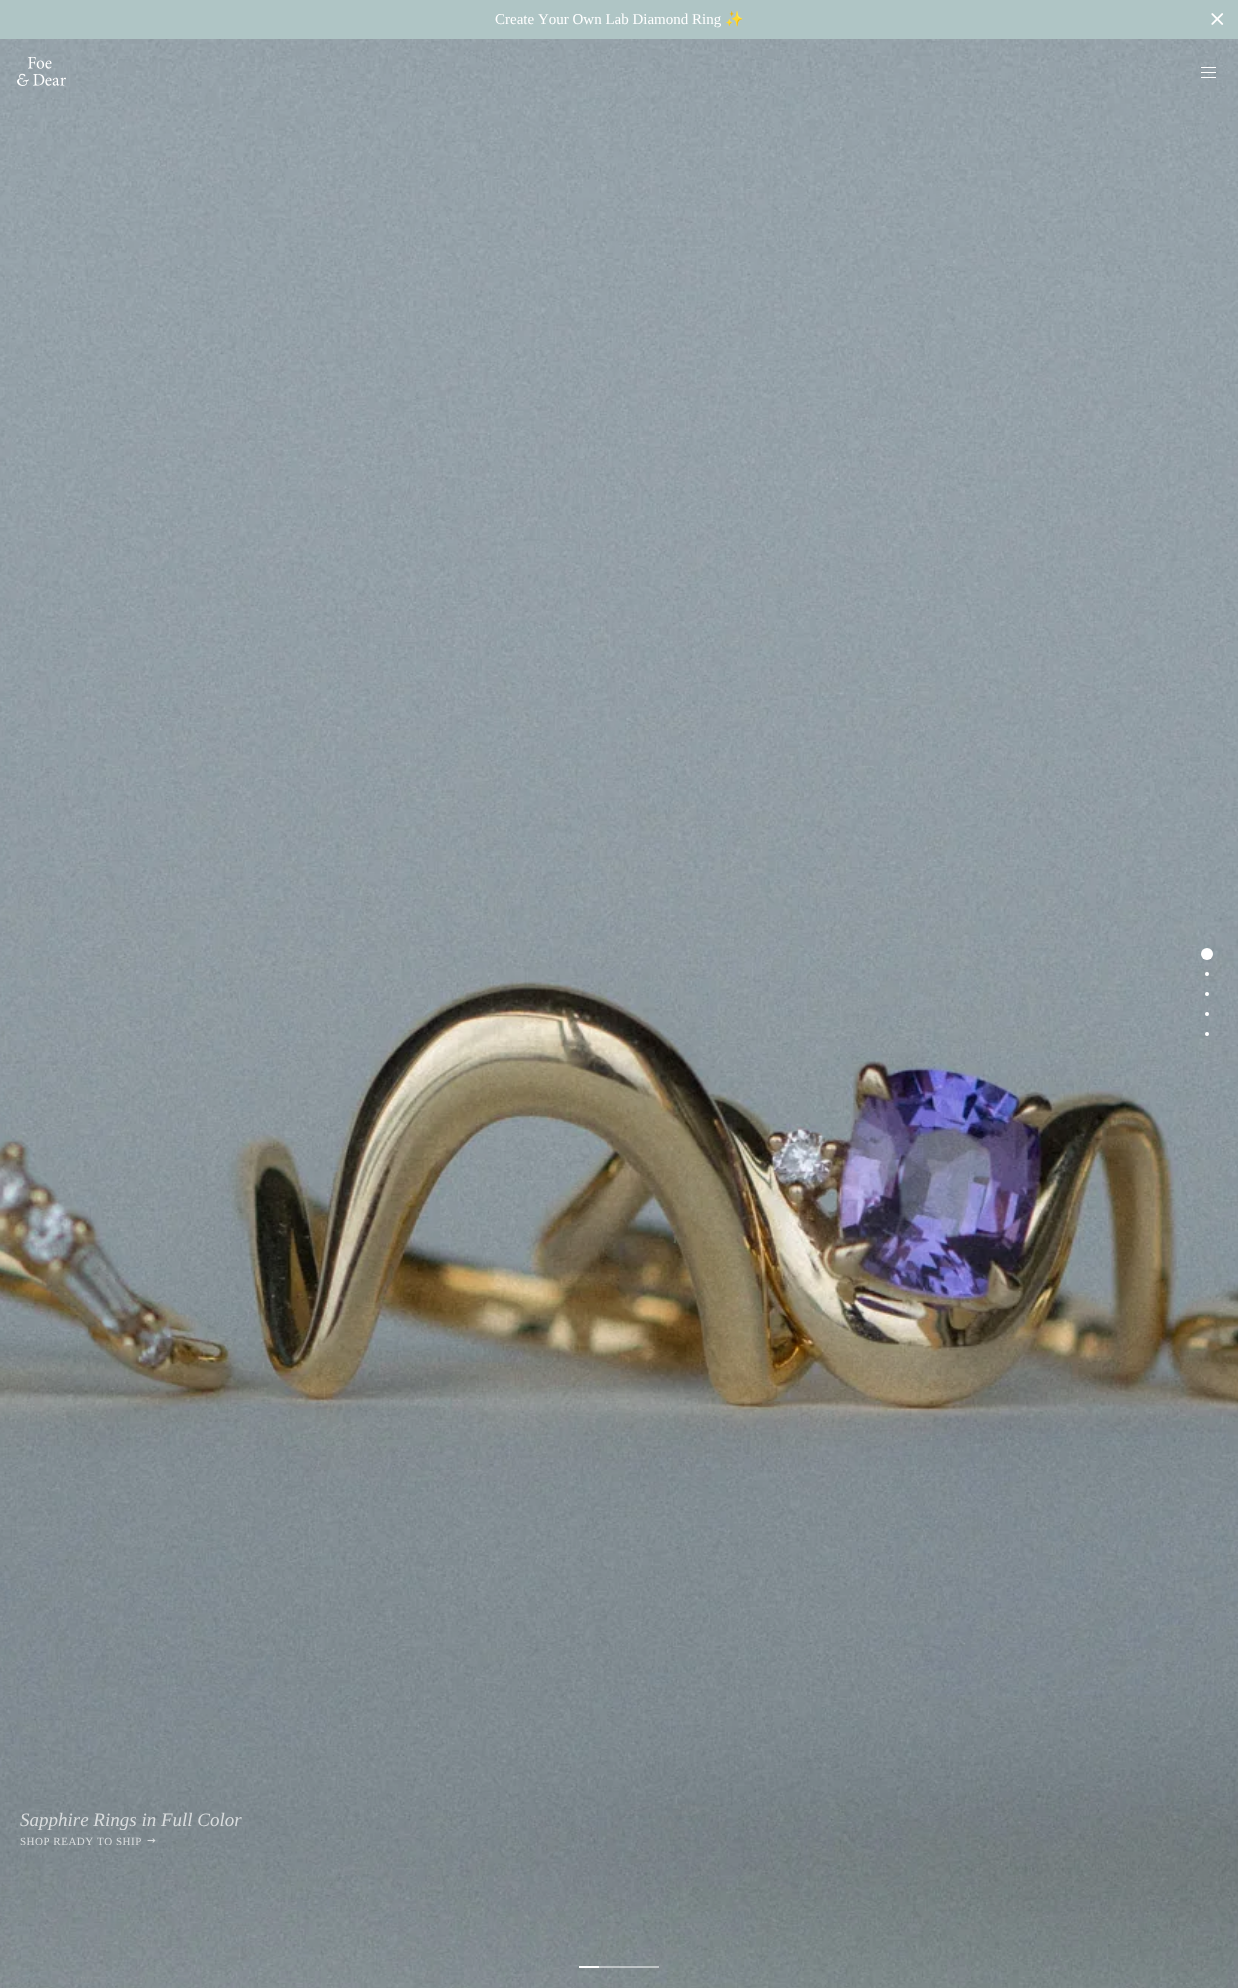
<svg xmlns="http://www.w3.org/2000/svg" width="1238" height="1988">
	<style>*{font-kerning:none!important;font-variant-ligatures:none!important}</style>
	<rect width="100%" height="100%" fill="#FFFFFF" />
	<rect x="0" y="0" width="1238" height="39" fill="#AFC5C5" />
	<text x="495" y="24" font-family="Liberation Serif" font-size="15" fill="#FFFFFF">Create Your Own Lab Diamond Ring</text>
	<text x="725" y="24" font-family="Noto Color Emoji" font-size="15" fill="#FFFFFF">✨</text>
	<image x="1211" y="13" width="13" height="12" href="assets/img1.png" />
	<image x="0" y="39" width="1238" height="1949" href="assets/img2.png" />
	<text x="20" y="1826" font-family="Liberation Serif" font-size="19" font-style="italic" fill="#D9DCDD">Sapphire Rings in Full Color</text>
	<text x="20" y="1845" font-family="Liberation Serif" font-size="11" letter-spacing="0.5" fill="#D9DCDD">SHOP READY TO SHIP</text>
	<image x="147" y="1838" width="9" height="5" href="assets/img3.png" />
	<rect x="579" y="1966" width="20" height="2" fill="#FFFFFF" />
	<rect x="599" y="1966" width="20" height="2" fill="#FFFFFF" fill-opacity="0.5" />
	<rect x="619" y="1966" width="20" height="2" fill="#FFFFFF" fill-opacity="0.5" />
	<rect x="639" y="1966" width="20" height="2" fill="#FFFFFF" fill-opacity="0.5" />
	<image x="17" y="57" width="49" height="29" href="assets/img4.png" />
	<rect x="1201" y="67" width="15" height="1" fill="#FFFFFF" />
	<rect x="1201" y="72" width="15" height="1" fill="#FFFFFF" />
	<rect x="1201" y="77" width="15" height="1" fill="#FFFFFF" />
	<circle cx="1207" cy="954" r="6" fill="#FFFFFF" />
	<circle cx="1207" cy="974" r="2" fill="#FFFFFF" />
	<circle cx="1207" cy="994" r="2" fill="#FFFFFF" />
	<circle cx="1207" cy="1014" r="2" fill="#FFFFFF" />
	<circle cx="1207" cy="1034" r="2" fill="#FFFFFF" />
</svg>
